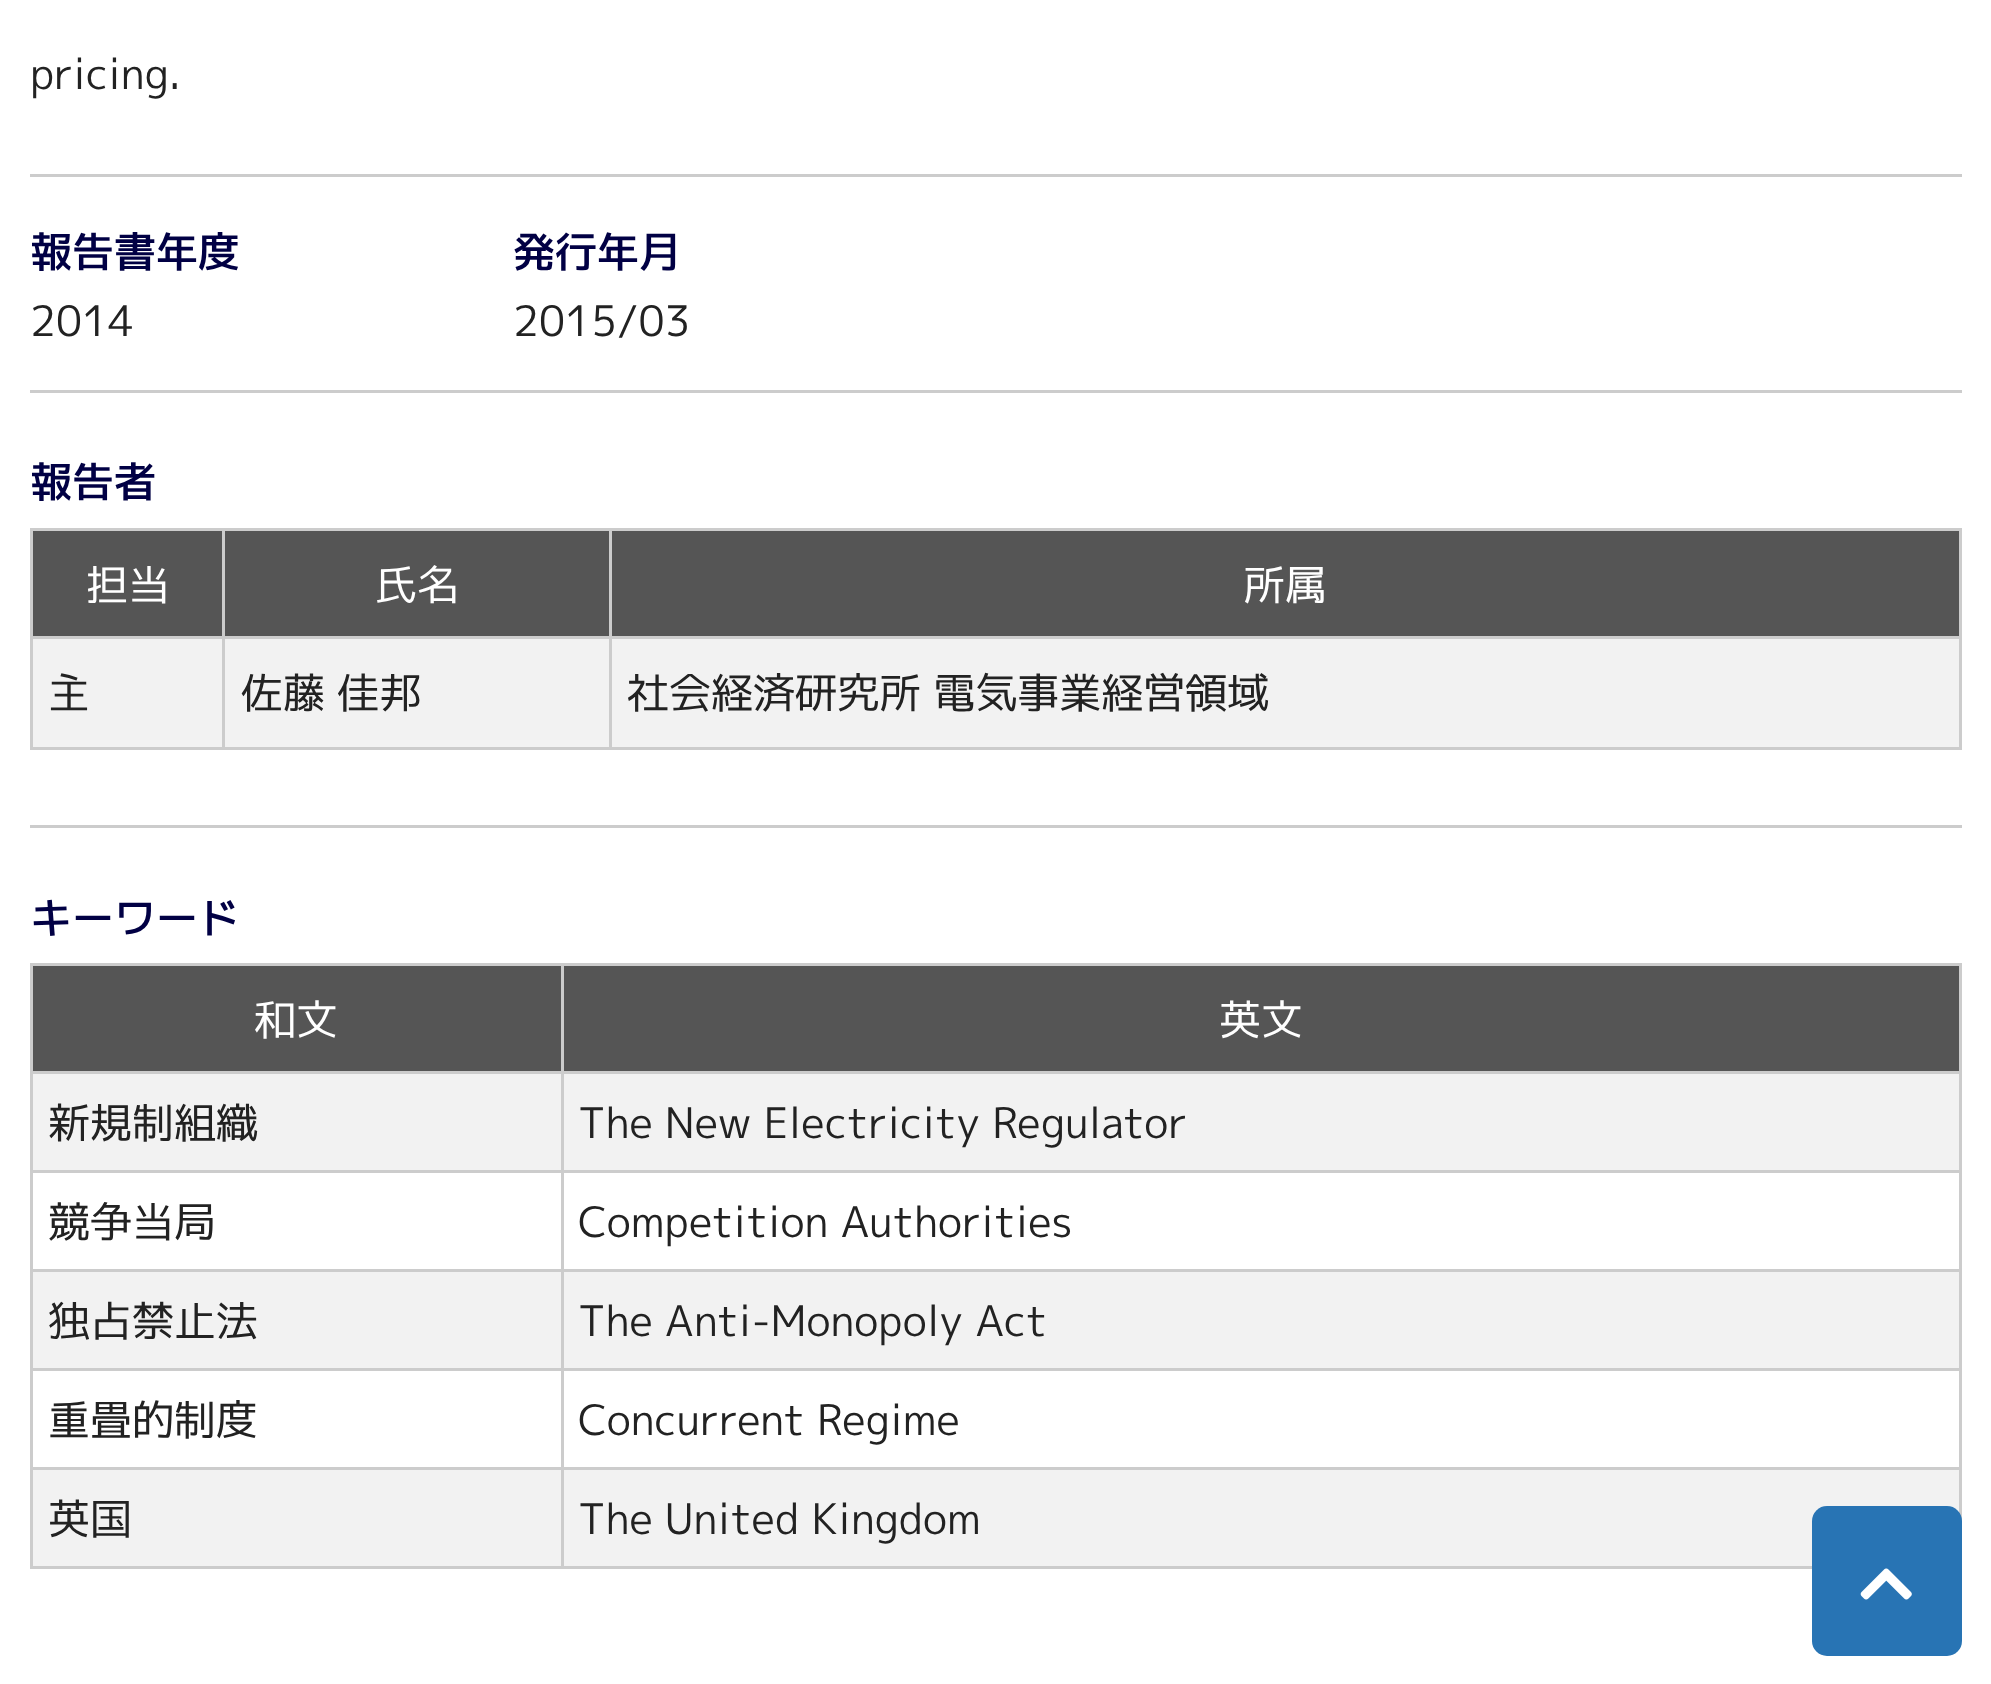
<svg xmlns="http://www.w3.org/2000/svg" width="1991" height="1684">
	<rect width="100%" height="100%" fill="#FFFFFF" />
	<text x="30" y="89" font-family="'M PLUS 1p'" font-size="42" fill="#222222">pricing.</text>
	<rect x="30" y="174" width="1932" height="3" fill="#CCCCCC" />
	<text x="30" y="267" font-family="'M PLUS 1p'" font-size="42" font-weight="500" fill="#010044">報告書年度</text>
	<text x="30" y="336" font-family="'M PLUS 1p'" font-size="42" fill="#222222">2014</text>
	<text x="513" y="267" font-family="'M PLUS 1p'" font-size="42" font-weight="500" fill="#010044">発行年月</text>
	<text x="513" y="336" font-family="'M PLUS 1p'" font-size="42" fill="#222222">2015/03</text>
	<rect x="30" y="390" width="1932" height="3" fill="#CCCCCC" />
	<text x="30" y="497" font-family="'M PLUS 1p'" font-size="42" font-weight="500" fill="#010044">報告者</text>
	<rect x="33" y="531" width="189" height="105" fill="#555555" />
	<rect x="609" y="528" width="1353" height="3" fill="#CCCCCC" />
	<rect x="609" y="636" width="1353" height="3" fill="#CCCCCC" />
	<rect x="1959" y="636" width="3" height="114" fill="#CCCCCC" />
	<rect x="609" y="747" width="1353" height="3" fill="#CCCCCC" />
	<rect x="609" y="636" width="3" height="114" fill="#CCCCCC" />
	<rect x="222" y="636" width="390" height="3" fill="#CCCCCC" />
	<rect x="609" y="528" width="3" height="111" fill="#CCCCCC" />
	<rect x="222" y="528" width="390" height="3" fill="#CCCCCC" />
	<rect x="222" y="747" width="390" height="3" fill="#CCCCCC" />
	<rect x="222" y="636" width="3" height="114" fill="#CCCCCC" />
	<rect x="30" y="636" width="195" height="3" fill="#CCCCCC" />
	<rect x="222" y="528" width="3" height="111" fill="#CCCCCC" />
	<rect x="30" y="528" width="195" height="3" fill="#CCCCCC" />
	<rect x="30" y="747" width="195" height="3" fill="#CCCCCC" />
	<rect x="30" y="636" width="3" height="114" fill="#CCCCCC" />
	<rect x="30" y="528" width="3" height="111" fill="#CCCCCC" />
	<text x="86" y="600" font-family="'M PLUS 1p'" font-size="42" fill="#FFFFFF">担当</text>
	<rect x="225" y="531" width="384" height="105" fill="#555555" />
	<text x="375" y="600" font-family="'M PLUS 1p'" font-size="42" fill="#FFFFFF">氏名</text>
	<rect x="612" y="531" width="1347" height="105" fill="#555555" />
	<rect x="1959" y="528" width="3" height="111" fill="#CCCCCC" />
	<text x="1243" y="600" font-family="'M PLUS 1p'" font-size="42" fill="#FFFFFF">所属</text>
	<rect x="33" y="639" width="189" height="108" fill="#F2F2F2" />
	<text x="48" y="708" font-family="'M PLUS 1p'" font-size="42" fill="#222222">主</text>
	<rect x="225" y="639" width="384" height="108" fill="#F2F2F2" />
	<text x="241" y="708" font-family="'M PLUS 1p'" font-size="42" fill="#222222">佐藤 佳邦</text>
	<rect x="612" y="639" width="1347" height="108" fill="#F2F2F2" />
	<text x="627" y="708" font-family="'M PLUS 1p'" font-size="42" fill="#222222">社会経済研究所 電気事業経営領域</text>
	<rect x="30" y="825" width="1932" height="3" fill="#CCCCCC" />
	<text x="30" y="933" font-family="'M PLUS 1p'" font-size="42" font-weight="500" fill="#010044">キーワード</text>
	<rect x="33" y="966" width="528" height="105" fill="#555555" />
	<rect x="561" y="963" width="1401" height="3" fill="#CCCCCC" />
	<rect x="561" y="1071" width="1401" height="3" fill="#CCCCCC" />
	<rect x="561" y="1170" width="1401" height="3" fill="#CCCCCC" />
	<rect x="561" y="1269" width="1401" height="3" fill="#CCCCCC" />
	<rect x="561" y="1368" width="1401" height="3" fill="#CCCCCC" />
	<rect x="561" y="1467" width="1401" height="3" fill="#CCCCCC" />
	<rect x="561" y="1566" width="1251" height="3" fill="#CCCCCC" />
	<rect x="561" y="1467" width="3" height="102" fill="#CCCCCC" />
	<rect x="30" y="1467" width="534" height="3" fill="#CCCCCC" />
	<rect x="561" y="1368" width="3" height="102" fill="#CCCCCC" />
	<rect x="30" y="1368" width="534" height="3" fill="#CCCCCC" />
	<rect x="561" y="1269" width="3" height="102" fill="#CCCCCC" />
	<rect x="30" y="1269" width="534" height="3" fill="#CCCCCC" />
	<rect x="561" y="1170" width="3" height="102" fill="#CCCCCC" />
	<rect x="30" y="1170" width="534" height="3" fill="#CCCCCC" />
	<rect x="561" y="1071" width="3" height="102" fill="#CCCCCC" />
	<rect x="30" y="1071" width="534" height="3" fill="#CCCCCC" />
	<rect x="561" y="963" width="3" height="111" fill="#CCCCCC" />
	<rect x="30" y="963" width="534" height="3" fill="#CCCCCC" />
	<rect x="30" y="1566" width="534" height="3" fill="#CCCCCC" />
	<rect x="30" y="1467" width="3" height="102" fill="#CCCCCC" />
	<rect x="30" y="1368" width="3" height="102" fill="#CCCCCC" />
	<rect x="30" y="1269" width="3" height="102" fill="#CCCCCC" />
	<rect x="30" y="1170" width="3" height="102" fill="#CCCCCC" />
	<rect x="30" y="1071" width="3" height="102" fill="#CCCCCC" />
	<rect x="30" y="963" width="3" height="111" fill="#CCCCCC" />
	<text x="254" y="1035" font-family="'M PLUS 1p'" font-size="42" fill="#FFFFFF">和文</text>
	<rect x="564" y="966" width="1395" height="105" fill="#555555" />
	<rect x="1959" y="1467" width="3" height="54" fill="#CCCCCC" />
	<rect x="1959" y="1368" width="3" height="102" fill="#CCCCCC" />
	<rect x="1959" y="1269" width="3" height="102" fill="#CCCCCC" />
	<rect x="1959" y="1170" width="3" height="102" fill="#CCCCCC" />
	<rect x="1959" y="1071" width="3" height="102" fill="#CCCCCC" />
	<rect x="1959" y="963" width="3" height="111" fill="#CCCCCC" />
	<text x="1219" y="1035" font-family="'M PLUS 1p'" font-size="42" fill="#FFFFFF">英文</text>
	<rect x="33" y="1074" width="528" height="96" fill="#F2F2F2" />
	<text x="48" y="1138" font-family="'M PLUS 1p'" font-size="42" fill="#222222">新規制組織</text>
	<rect x="564" y="1074" width="1395" height="96" fill="#F2F2F2" />
	<g font-family="'M PLUS 1p'" font-size="42" fill="#222222">
		<text x="578" y="1138">The New Electricity Regulator</text>
		<text x="48" y="1237">競争当局</text>
		<text x="578" y="1237">Competition Authorities</text>
	</g>
	<rect x="33" y="1272" width="528" height="96" fill="#F2F2F2" />
	<text x="48" y="1336" font-family="'M PLUS 1p'" font-size="42" fill="#222222">独占禁止法</text>
	<rect x="564" y="1272" width="1395" height="96" fill="#F2F2F2" />
	<g font-family="'M PLUS 1p'" font-size="42" fill="#222222">
		<text x="578" y="1336">The Anti-Monopoly Act</text>
		<text x="48" y="1435">重畳的制度</text>
		<text x="578" y="1435">Concurrent Regime</text>
	</g>
	<rect x="33" y="1470" width="528" height="96" fill="#F2F2F2" />
	<text x="48" y="1534" font-family="'M PLUS 1p'" font-size="42" fill="#222222">英国</text>
	<rect x="564" y="1470" width="1395" height="96" fill="#F2F2F2" />
	<text x="578" y="1534" font-family="'M PLUS 1p'" font-size="42" fill="#222222">The United Kingdom</text>
	<rect x="1812" y="1506" width="150" height="150" rx="15" fill="#2874B4" />
	<image x="1860" y="1568" width="52" height="32" href="assets/img1.png" />
</svg>
